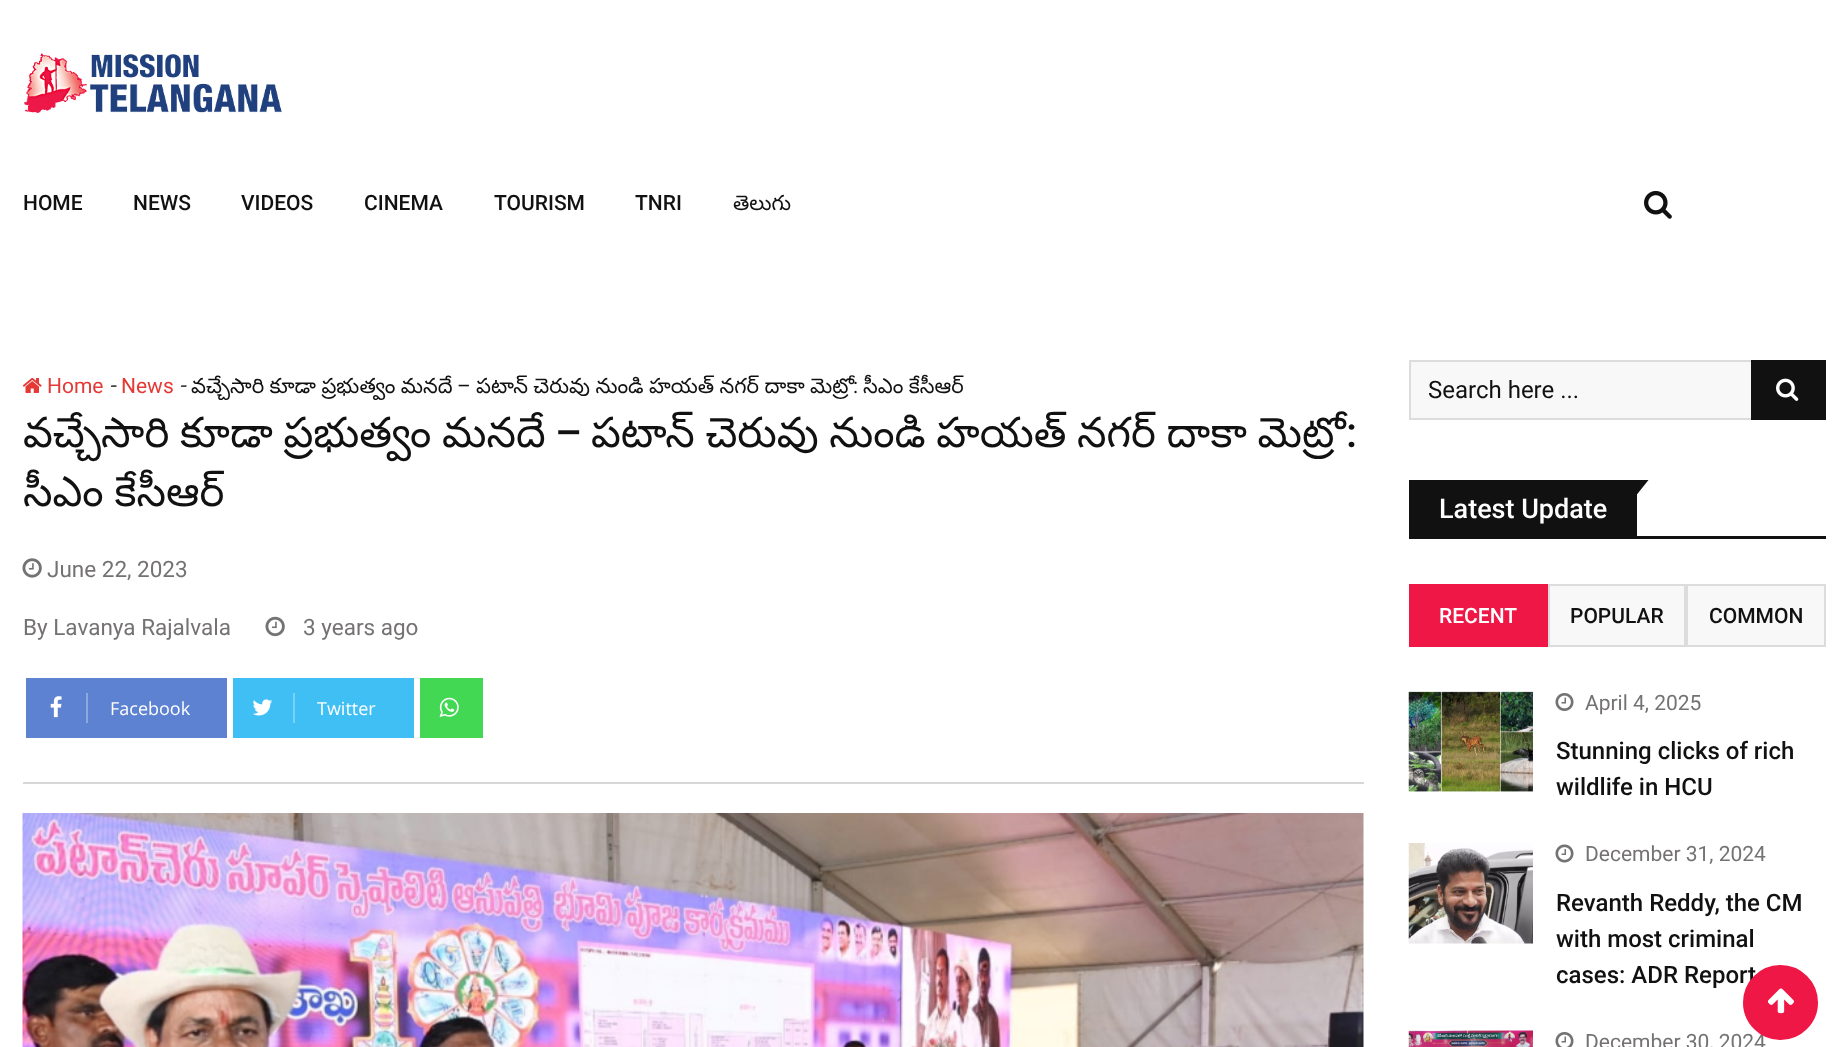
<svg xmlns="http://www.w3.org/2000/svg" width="1847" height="1047">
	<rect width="100%" height="100%" fill="#FFFFFF" />
	<image x="24" y="53" width="258" height="60" href="assets/img1.png" />
	<g font-family="Roboto" font-size="21" font-weight="500" fill="#111111">
		<text x="23" y="210">HOME</text>
		<text x="133" y="210">NEWS</text>
		<text x="241" y="210">VIDEOS</text>
		<text x="364" y="210">CINEMA</text>
		<text x="494" y="210">TOURISM</text>
		<text x="635" y="210">TNRI</text>
	</g>
	<text x="733" y="210" font-family="Noto Sans Telugu" font-size="21" fill="#111111">తెలుగు</text>
	<image x="1644" y="190" width="28" height="29" href="assets/img2.png" />
	<image x="22" y="378" width="20" height="15" href="assets/img3.png" />
	<text x="47" y="393" font-family="Roboto" font-size="21" fill="#E53935">Home</text>
	<text x="109" y="393" font-family="Roboto" font-size="22.5" font-style="italic" fill="#444444">-</text>
	<text x="121" y="393" font-family="Roboto" font-size="21" fill="#E53935">News</text>
	<text x="179" y="393" font-family="Roboto" font-size="22.5" font-style="italic" fill="#444444">-</text>
	<text x="191" y="393" word-spacing="-0.5" font-family="Noto Sans Telugu" font-size="21" fill="#111111">వచ్చేసారి కూడా ప్రభుత్వం మనదే</text>
	<text x="457" y="393" font-family="Roboto" font-size="21" fill="#111111">–</text>
	<text x="476" y="393" word-spacing="-0.5" font-family="Noto Sans Telugu" font-size="21" fill="#111111">పటాన్ చెరువు నుండి హయత్ నగర్ దాకా మెట్రో</text>
	<text x="853" y="393" font-family="Roboto" font-size="21" fill="#111111">:</text>
	<text x="863" y="393" word-spacing="-0.5" font-family="Noto Sans Telugu" font-size="21" fill="#111111">సీఎం కేసీఆర్</text>
	<text x="23" y="447" word-spacing="-1.25" font-family="Noto Sans Telugu" font-size="42" fill="#111111">వచ్చేసారి కూడా ప్రభుత్వం మనదే</text>
	<text x="555" y="447" font-family="Roboto" font-size="42" font-weight="500" fill="#111111">–</text>
	<text x="591" y="447" word-spacing="-1.25" font-family="Noto Sans Telugu" font-size="42" fill="#111111">పటాన్ చెరువు నుండి హయత్ నగర్ దాకా మెట్రో</text>
	<text x="1346" y="447" font-family="Roboto" font-size="42" font-weight="500" fill="#111111">:</text>
	<text x="23" y="506" word-spacing="-1" font-family="Noto Sans Telugu" font-size="42" fill="#111111">సీఎం కేసీఆర్</text>
	<image x="22" y="558" width="20" height="20" href="assets/img4.png" />
	<g font-family="Roboto" font-size="22.5" fill="#757272">
		<text x="47" y="577">June 22, 2023</text>
		<text x="23" y="635">By Lavanya Rajalvala</text>
	</g>
	<image x="265" y="616" width="20" height="21" href="assets/img5.png" />
	<text x="303" y="635" font-family="Roboto" font-size="22.5" fill="#757272">3 years ago</text>
	<rect x="26" y="678" width="201" height="60" fill="#5D82D1" />
	<image x="50" y="696" width="12" height="22" href="assets/img6.png" />
	<rect x="86" y="693" width="2" height="30" fill="#8EA8DF" />
	<text x="110" y="715" font-family="Open Sans" font-size="18" fill="#FFFFFF">Facebook</text>
	<rect x="233" y="678" width="181" height="60" fill="#40BFF5" />
	<image x="252" y="699" width="21" height="17" href="assets/img7.png" />
	<rect x="293" y="693" width="2" height="30" fill="#79D2F8" />
	<text x="317" y="715" font-family="Open Sans" font-size="18" fill="#FFFFFF">Twitter</text>
	<rect x="420" y="678" width="63" height="60" fill="#43D854" />
	<image x="439" y="697" width="20" height="21" href="assets/img8.png" />
	<rect x="23" y="782" width="1341" height="2" fill="#D7D7D7" />
	<image x="22" y="813" width="1342" height="234" href="assets/img9.png" />
	<rect x="1411" y="362" width="340" height="56" fill="#F8F8F8" />
	<rect x="1410" y="361" width="415" height="58" fill="none" stroke="#DCDCDC" stroke-width="2" />
	<text x="1428" y="398" font-family="Roboto" font-size="24" fill="#111111">Search here ...</text>
	<rect x="1751" y="360" width="75" height="60" fill="#111111" />
	<image x="1776" y="378" width="23" height="23" href="assets/img10.png" />
	<rect x="1409" y="536" width="417" height="3" fill="#111111" />
	<rect x="1409" y="480" width="228" height="56" fill="#111111" />
	<path d="M1636.5 480H1648.5L1636.5 495Z" fill="#111111" />
	<text x="1439" y="518" font-family="Roboto" font-size="27" font-weight="500" fill="#FFFFFF">Latest Update</text>
	<rect x="1409" y="584" width="139" height="63" fill="#EE1745" />
	<text x="1439" y="623" font-family="Roboto" font-size="21" font-weight="500" fill="#FFFFFF">RECENT</text>
	<rect x="1549" y="585" width="136" height="61" fill="#F8F8F8" stroke="#DCDCDC" stroke-width="2" />
	<text x="1570" y="623" font-family="Roboto" font-size="21" font-weight="500" fill="#111111">POPULAR</text>
	<rect x="1687" y="585" width="138" height="61" fill="#F8F8F8" stroke="#DCDCDC" stroke-width="2" />
	<text x="1709" y="623" font-family="Roboto" font-size="21" font-weight="500" fill="#111111">COMMON</text>
	<image x="1408" y="691" width="125" height="101" href="assets/img11.png" />
	<image x="1555" y="693" width="19" height="18" href="assets/img12.png" />
	<text x="1585" y="710" font-family="Roboto" font-size="21" fill="#757272">April 4, 2025</text>
	<g font-family="Roboto" font-size="24" font-weight="500" fill="#111111">
		<text x="1556" y="759">Stunning clicks of rich</text>
		<text x="1556" y="795">wildlife in HCU</text>
	</g>
	<image x="1408" y="843" width="125" height="101" href="assets/img13.png" />
	<image x="1555" y="844" width="19" height="19" href="assets/img14.png" />
	<text x="1585" y="861" font-family="Roboto" font-size="21" fill="#757272">December 31, 2024</text>
	<g font-family="Roboto" font-size="24" font-weight="500" fill="#111111">
		<text x="1556" y="911">Revanth Reddy, the CM</text>
		<text x="1556" y="947">with most criminal</text>
		<text x="1556" y="983">cases: ADR Report</text>
	</g>
	<image x="1408" y="1030" width="125" height="17" href="assets/img15.png" />
	<image x="1555" y="1032" width="19" height="15" href="assets/img16.png" />
	<text x="1585" y="1049" font-family="Roboto" font-size="21" fill="#757272">December 30, 2024</text>
	<circle cx="1780.5" cy="1002.5" r="36" fill="#EE1745" stroke="#EE1745" stroke-width="3" />
	<image x="1767" y="988" width="27" height="26" href="assets/img17.png" />
</svg>
